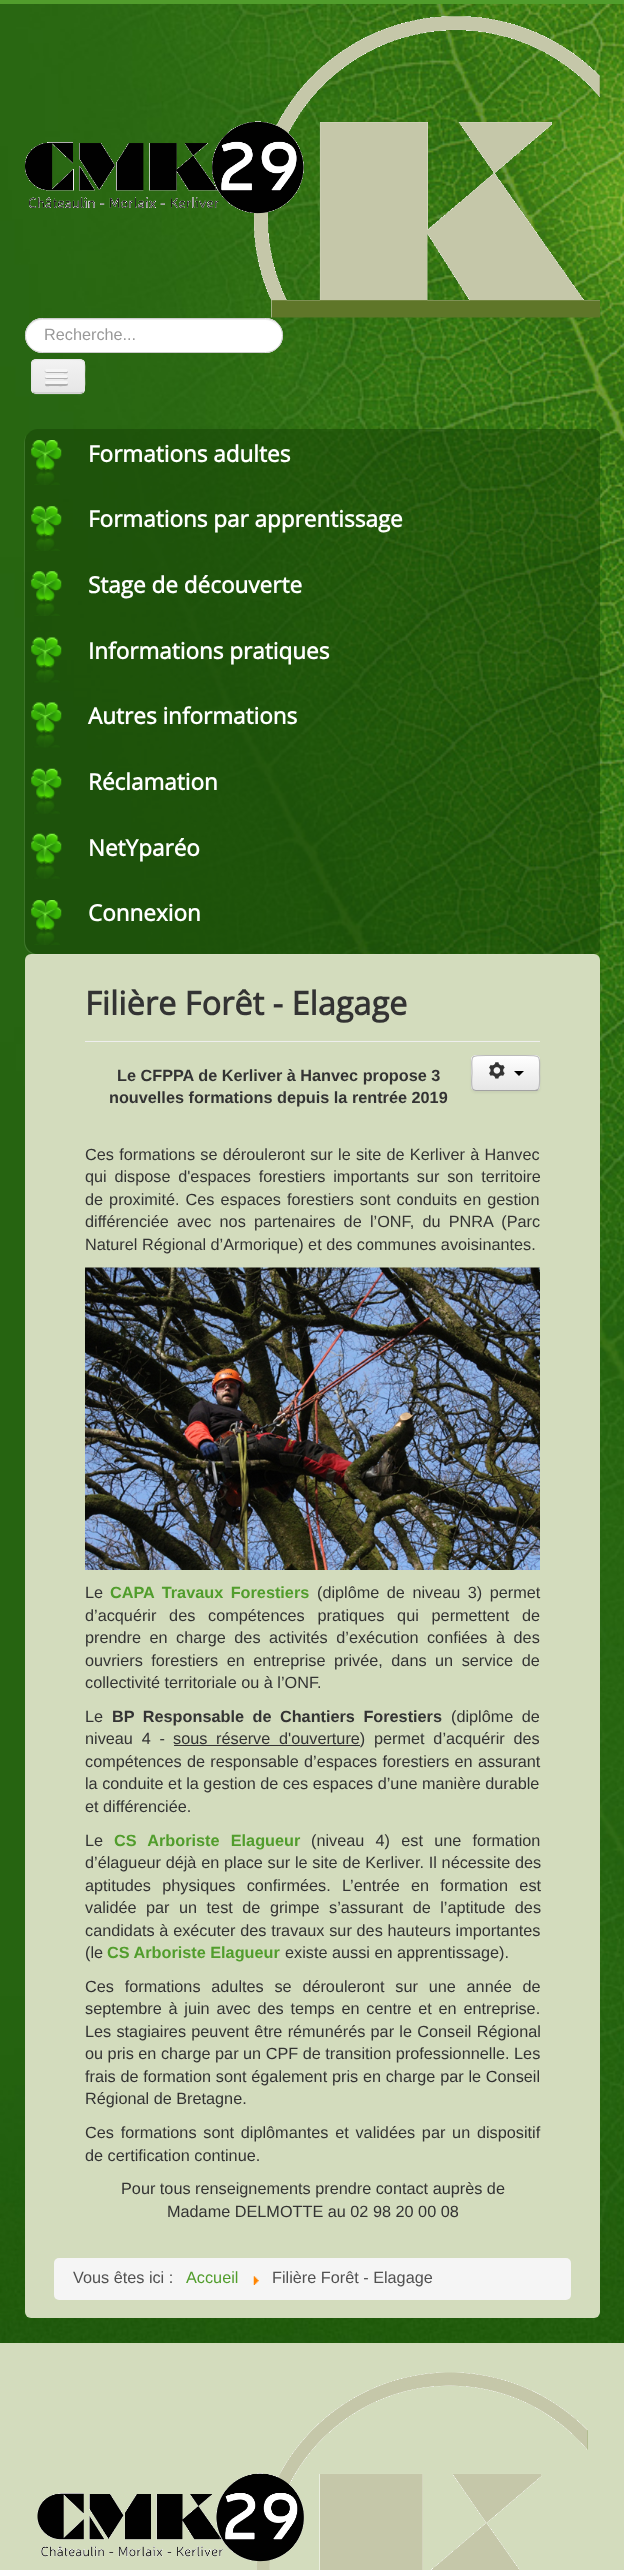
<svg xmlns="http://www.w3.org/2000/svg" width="624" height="2570">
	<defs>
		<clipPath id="clip1"><rect x="31" y="359" width="54" height="35" rx="5" /></clipPath>
		<linearGradient id="g1" gradientUnits="userSpaceOnUse" x1="58" y1="360" x2="58" y2="393"><stop offset="0" stop-color="#F2F2F2" /><stop offset="1" stop-color="#E6E6E6" /></linearGradient>
		<clipPath id="clip2"><rect x="471" y="1055" width="69" height="36" rx="5" /></clipPath>
		<linearGradient id="g2" gradientUnits="userSpaceOnUse" x1="506" y1="1056" x2="506" y2="1090"><stop offset="0" stop-color="#FFFFFF" /><stop offset="1" stop-color="#E6E6E6" /></linearGradient>
	</defs>
	<rect width="100%" height="100%" fill="#FFFFFF" />
	<image x="0" y="4" width="624" height="2339" href="assets/img1.png" />
	<rect x="0" y="0" width="624" height="4" fill="#519D2C" />
	<image x="25" y="16" width="575" height="302" href="assets/img2.png" />
	<rect x="25" y="318" width="258" height="35" rx="17.5" fill="#FFFFFF" />
	<path d="M42 320H265C274 320 281 327 281 335C281 327 274 319 265 319H42C33 319 26 327 26 336C26 327 34 320 42 320Z" fill="#ECECEC" />
	<rect x="25.5" y="318.5" width="257" height="34" rx="17" fill="none" stroke="#CCCCCC" />
	<text x="44" y="340" font-family="Liberation Sans" font-size="16.25" fill="#999999">Recherche...</text>
	<path d="M31 363V391C32 396 40 395 43 395H73C79 395 85 397 85 389C85 392 83 394 80 394H36C33 394 31 392 31 389Z" fill="#387224" />
	<rect x="31" y="359" width="54" height="35" rx="5" fill="#EDEDED" />
	<g clip-path="url(#clip1)">
		<rect x="31" y="360" width="54" height="33" fill="url(#g1)" />
	</g>
	<path d="M83 392C82.5 392.5 81 393 80 393H36C35 393 34 392.5 33 392" fill="none" stroke="#BFBFBF" stroke-width="1.2" />
	<path d="M33 392C30.5 389.5 32 379.5 32 376C32 360.5 28.5 359.5 43.5 359.5H72.5C87.5 359.5 84.5 360.5 84.5 376C84.5 379.5 85.5 389.5 83 392" fill="none" stroke="#E6E6E6" stroke-width="1.2" />
	<path d="M45 370.5C43.5 373.5 49.5 373 50 373H63C64 373 67.5 374 68 372C68 371.5 68 370.5 67.5 370.5L66.5 371H46Z" fill="#B2B2B2" />
	<rect x="45" y="369" width="23" height="3" rx="1.5" fill="#F5F5F5" />
	<path d="M45 377C44 379.5 49 379 50 379H63C64 379 67.5 380 68 378C68 377.5 68 376.5 67.5 376.5C67.5 377 67 377.5 66 377.5H46C46 377.5 45.5 377 45 377Z" fill="#B0B0B0" />
	<rect x="45" y="375" width="23" height="3" rx="1.5" fill="#F5F5F5" />
	<path d="M45.5 383.5L45 385C45.5 387 49 386 50 386H53C55 386 66.5 386.5 67.5 385.5C68 385 68 384 67.5 383L66.5 383.5C64.5 384 46 384 45.5 383.5Z" fill="#AFAFAF" />
	<rect x="45" y="381" width="23" height="3" rx="1.5" fill="#F5F5F5" />
	<rect x="25" y="954" width="575" height="1364" rx="6" fill="#D3DCBD" />
	<path d="M26 435C25 438 24 440 24 443V942C24 949 30 955 37 955H593C595 955 597 954 598 952C597 953 596 954 594 954H38C31 954 25 948 25 941V441C25 439 26 437 26 435Z" fill="#FFFFFF" fill-opacity="0.1" />
	<path d="M38 429H594C597.5 429 600 431.5 600 435V948C600 951.5 597.5 954 594 954H38C31 954 25 948 25 941V442C25 435 31 429 38 429Z" fill="#133F04" fill-opacity="0.5" />
	<image x="31" y="440" width="31" height="45" href="assets/img3.png" />
	<text x="88" y="462" font-family="Open Sans" font-size="22.5" font-weight="700" fill="#FFFFFF">Formations adultes</text>
	<image x="31" y="506" width="31" height="45" href="assets/img4.png" />
	<text x="88" y="527" font-family="Open Sans" font-size="22.5" font-weight="700" fill="#FFFFFF">Formations par apprentissage</text>
	<image x="31" y="571" width="31" height="45" href="assets/img5.png" />
	<text x="88" y="593" font-family="Open Sans" font-size="22.5" font-weight="700" fill="#FFFFFF">Stage de découverte</text>
	<image x="31" y="637" width="31" height="46" href="assets/img6.png" />
	<text x="88" y="659" font-family="Open Sans" font-size="22.5" font-weight="700" fill="#FFFFFF">Informations pratiques</text>
	<image x="31" y="702" width="31" height="46" href="assets/img7.png" />
	<text x="88" y="724" font-family="Open Sans" font-size="22.5" font-weight="700" fill="#FFFFFF">Autres informations</text>
	<image x="31" y="768" width="31" height="46" href="assets/img8.png" />
	<text x="88" y="790" font-family="Open Sans" font-size="22.5" font-weight="700" fill="#FFFFFF">Réclamation</text>
	<image x="31" y="833" width="31" height="46" href="assets/img8.png" />
	<text x="88" y="856" font-family="Open Sans" font-size="22.5" font-weight="700" fill="#FFFFFF">NetYparéo</text>
	<image x="31" y="900" width="31" height="45" href="assets/img9.png" />
	<text x="88" y="921" font-family="Open Sans" font-size="22.5" font-weight="700" fill="#FFFFFF">Connexion</text>
	<rect x="85" y="1041" width="455" height="1" fill="#EEEEEE" />
	<text x="85" y="1015" font-family="Open Sans" font-size="32.5" font-weight="700" fill="#333333">Filière Forêt - Elagage</text>
	<rect x="471" y="1056" width="69" height="37" rx="5" fill="#000000" fill-opacity="0.05" filter="blur(1px)" />
	<rect x="471" y="1055" width="69" height="36" rx="5" fill="#F5F5F5" />
	<g clip-path="url(#clip2)">
		<rect x="471" y="1056" width="69" height="34" fill="url(#g2)" />
	</g>
	<path d="M538 1089.5C537.5 1090 536 1090.5 535 1090.5H476C475 1090.5 474 1090 473 1089.5" fill="none" stroke="#A2A2A2" stroke-width="1.2" />
	<path d="M473 1089.5C470.5 1086.5 472 1076.5 472 1073C472 1055.5 468.5 1055.5 486 1055.5H525C542.5 1055.5 539.5 1055.5 539.5 1073C539.5 1076.5 540.5 1086.5 538 1089.5" fill="none" stroke="#BBBBBB" stroke-width="1.2" />
	<image x="489" y="1062" width="16" height="17" href="assets/img10.png" />
	<path d="M514 1071H524L519 1076Z" fill="#000000" />
	<g font-family="Liberation Sans" font-size="16.25" font-weight="700" fill="#333333">
		<text x="117" y="1081">Le CFPPA de Kerliver à Hanvec propose 3</text>
		<text x="109" y="1103">nouvelles formations depuis la rentrée 2019</text>
	</g>
	<g font-family="Liberation Sans" font-size="16.25" fill="#333333">
		<text x="85" y="1160" word-spacing="0.75">Ces formations se dérouleront sur le site de Kerliver à Hanvec</text>
		<text x="85" y="1182" word-spacing="3.25">qui dispose d'espaces forestiers importants sur son territoire</text>
		<text x="85" y="1205" word-spacing="1.5">de proximité. Ces espaces forestiers sont conduits en gestion</text>
		<text x="85" y="1227" word-spacing="3.75">différenciée avec nos partenaires de l’ONF, du PNRA (Parc</text>
		<text x="85" y="1250">Naturel Régional d’Armorique) et des communes avoisinantes.</text>
	</g>
	<image x="85" y="1267" width="455" height="303" href="assets/img11.png" />
	<text x="85" y="1598" font-family="Liberation Sans" font-size="16.25" fill="#333333">Le</text>
	<text x="110" y="1598" word-spacing="3" font-family="Liberation Sans" font-size="16.25" font-weight="700" fill="#519D2C">CAPA Travaux Forestiers</text>
	<g font-family="Liberation Sans" font-size="16.25" fill="#333333">
		<text x="317" y="1598" word-spacing="3">(diplôme de niveau 3) permet</text>
		<text x="85" y="1621" word-spacing="8.25">d’acquérir des compétences pratiques qui permettent de</text>
		<text x="85" y="1643" word-spacing="4">prendre en charge des activités d’exécution confiées à des</text>
		<text x="85" y="1666" word-spacing="4">ouvriers forestiers en entreprise privée, dans un service de</text>
		<text x="85" y="1688">collectivité territoriale ou à l’ONF.</text>
		<text x="85" y="1722">Le</text>
	</g>
	<text x="112" y="1722" word-spacing="4" font-family="Liberation Sans" font-size="16.25" font-weight="700" fill="#333333">BP Responsable de Chantiers Forestiers</text>
	<g font-family="Liberation Sans" font-size="16.25" fill="#333333">
		<text x="451" y="1722" word-spacing="4">(diplôme de</text>
		<text x="85" y="1744" word-spacing="4.25">niveau 4 -</text>
	</g>
	<rect x="174" y="1745" width="186" height="1" fill="#333333" />
	<g font-family="Liberation Sans" font-size="16.25" fill="#333333">
		<text x="173" y="1744" word-spacing="4.25">sous réserve d'ouverture) permet d’acquérir des</text>
		<text x="85" y="1767" word-spacing="0.75">compétences de responsable d’espaces forestiers en assurant</text>
		<text x="85" y="1789">la conduite et la gestion de ces espaces d’une manière durable</text>
		<text x="85" y="1812">et différenciée.</text>
		<text x="85" y="1846">Le</text>
	</g>
	<text x="114" y="1846" word-spacing="6.75" font-family="Liberation Sans" font-size="16.25" font-weight="700" fill="#519D2C">CS Arboriste Elagueur</text>
	<g font-family="Liberation Sans" font-size="16.25" fill="#333333">
		<text x="311" y="1846" word-spacing="6.75">(niveau 4) est une formation</text>
		<text x="85" y="1868" word-spacing="0.25">d’élagueur déjà en place sur le site de Kerliver. Il nécessite des</text>
		<text x="85" y="1891" word-spacing="6.75">aptitudes physiques confirmées. L’entrée en formation est</text>
		<text x="85" y="1913" word-spacing="5">validée par un test de grimpe s’assurant de l’aptitude des</text>
		<text x="85" y="1936" word-spacing="0.25">candidats à exécuter des travaux sur des hauteurs importantes</text>
		<text x="85" y="1958">(le</text>
	</g>
	<text x="107" y="1958" font-family="Liberation Sans" font-size="16.25" font-weight="700" fill="#519D2C">CS Arboriste Elagueur</text>
	<g font-family="Liberation Sans" font-size="16.25" fill="#333333">
		<text x="285" y="1958">existe aussi en apprentissage).</text>
		<text x="85" y="1992" word-spacing="6.25">Ces formations adultes se dérouleront sur une année de</text>
		<text x="85" y="2014" word-spacing="2.25">septembre à juin avec des temps en centre et en entreprise.</text>
		<text x="85" y="2037" word-spacing="0.75">Les stagiaires peuvent être rémunérés par le Conseil Régional</text>
		<text x="85" y="2059">ou pris en charge par un CPF de transition professionnelle. Les</text>
		<text x="85" y="2082" word-spacing="0.25">frais de formation sont également pris en charge par le Conseil</text>
		<text x="85" y="2104">Régional de Bretagne.</text>
		<text x="85" y="2138" word-spacing="2.25">Ces formations sont diplômantes et validées par un dispositif</text>
		<text x="85" y="2161">de certification continue.</text>
		<text x="121" y="2194">Pour tous renseignements prendre contact auprès de</text>
		<text x="167" y="2217">Madame DELMOTTE au 02 98 20 00 08</text>
	</g>
	<rect x="54" y="2258" width="517" height="42" rx="5" fill="#F5F5F5" />
	<text x="73" y="2283" font-family="Liberation Sans" font-size="16.25" fill="#515151">Vous êtes ici :</text>
	<text x="186" y="2283" font-family="Liberation Sans" font-size="16.25" fill="#519D2C">Accueil</text>
	<image x="253" y="2276" width="6" height="9" href="assets/img12.png" />
	<text x="272" y="2283" font-family="Liberation Sans" font-size="16.25" fill="#515151">Filière Forêt - Elagage</text>
	<rect x="0" y="2343" width="624" height="227" fill="#D3DCBD" />
	<image x="37" y="2372" width="551" height="198" href="assets/img13.png" />
</svg>
